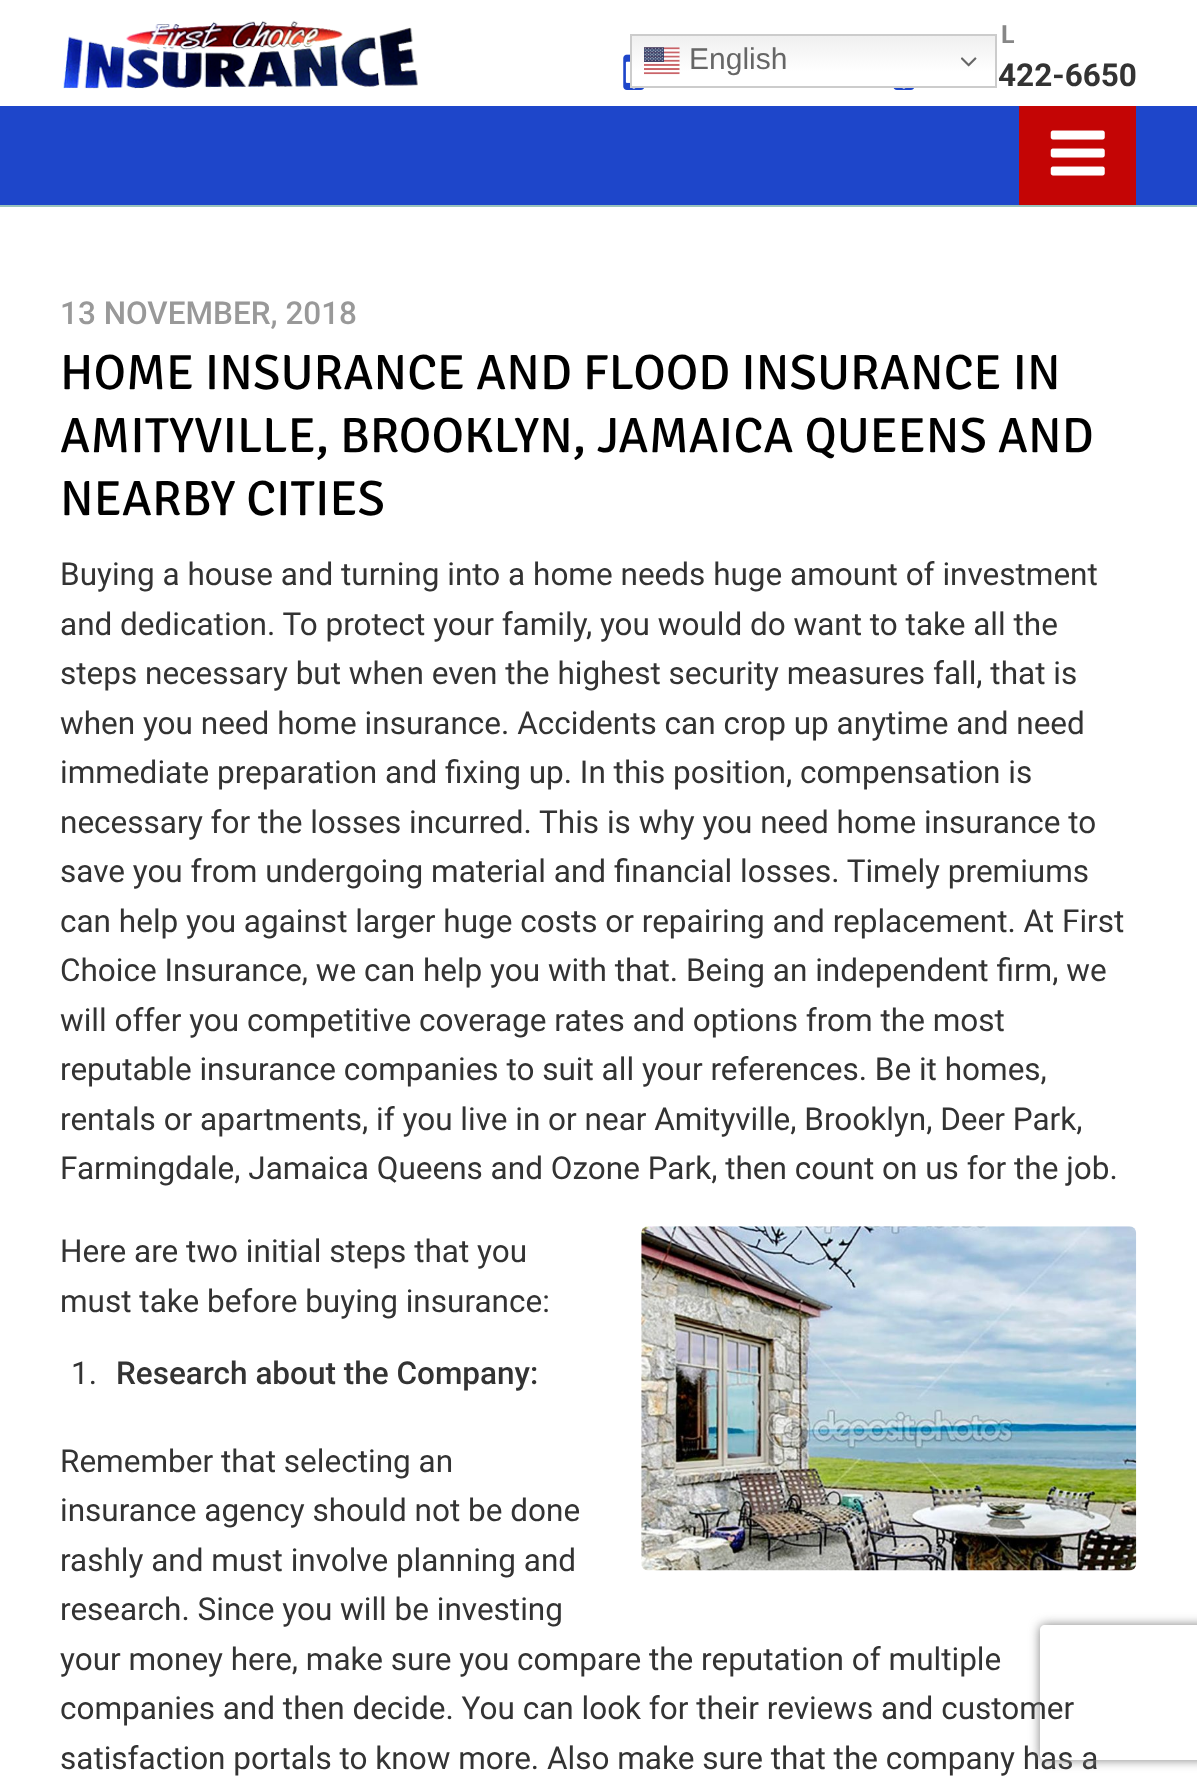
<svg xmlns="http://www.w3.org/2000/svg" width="1197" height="1790">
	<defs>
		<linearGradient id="g1" gradientUnits="userSpaceOnUse" x1="813" y1="34" x2="813" y2="88"><stop offset="0" stop-color="#EFEFEF" /><stop offset="0.7" stop-color="#FFFFFF" /></linearGradient>
		<clipPath id="clip1"><path d="M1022 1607H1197V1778H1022ZM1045 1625H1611C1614 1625 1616 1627 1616 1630V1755C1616 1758 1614 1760 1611 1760H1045C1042 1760 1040 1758 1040 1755V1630C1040 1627 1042 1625 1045 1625Z" clip-rule="evenodd" /></clipPath>
	</defs>
	<rect width="100%" height="100%" fill="#FFFFFF" />
	<image x="63" y="20" width="355" height="69" href="assets/img1.png" />
	<image x="623" y="54" width="21" height="36" href="assets/img4.png" />
	<rect x="632" y="36" width="363" height="50" fill="url(#g1)" />
	<rect x="631" y="35" width="365" height="52" fill="none" stroke="#CCCCCC" stroke-width="2" />
	<image x="644" y="47" width="36" height="28" href="assets/img2.png" />
	<text x="689" y="69" font-family="Liberation Sans" font-size="30" fill="#666666">English</text>
	<image x="961" y="57" width="16" height="10" href="assets/img3.png" />
	<text x="1001" y="43" font-family="Roboto" font-size="25" font-weight="700" fill="#878787">L</text>
	<text x="998" y="86" font-family="Roboto" font-size="31.5" font-weight="700" fill="#333333">422-6650</text>
	<image x="893" y="88" width="21" height="2" href="assets/img5.png" />
	<rect x="0" y="106" width="1197" height="99" fill="#1E46CA" />
	<rect x="1019" y="106" width="117" height="99" fill="#C40505" />
	<image x="1050" y="130" width="55" height="46" href="assets/img6.png" />
	<rect x="0" y="205" width="1197" height="2" fill="#99C2BC" />
	<text x="60" y="324" font-family="Roboto" font-size="31.5" font-weight="500" fill="#999999">13 NOVEMBER, 2018</text>
	<g font-family="Signika" font-size="49.5" fill="#000000">
		<text x="60" y="389">HOME INSURANCE AND FLOOD INSURANCE IN</text>
		<text x="60" y="452">AMITYVILLE, BROOKLYN, JAMAICA QUEENS AND</text>
		<text x="60" y="515">NEARBY CITIES</text>
	</g>
	<g font-family="Roboto" font-size="31.5" fill="#333333">
		<text x="60" y="585">Buying a house and turning into a home needs huge amount of investment</text>
		<text x="60" y="635">and dedication. To protect your family, you would do want to take all the</text>
		<text x="60" y="684">steps necessary but when even the highest security measures fall, that is</text>
		<text x="60" y="734">when you need home insurance. Accidents can crop up anytime and need</text>
		<text x="60" y="783">immediate preparation and fixing up. In this position, compensation is</text>
		<text x="60" y="833">necessary for the losses incurred. This is why you need home insurance to</text>
		<text x="60" y="882">save you from undergoing material and financial losses. Timely premiums</text>
		<text x="60" y="932">can help you against larger huge costs or repairing and replacement. At First</text>
		<text x="60" y="981">Choice Insurance, we can help you with that. Being an independent firm, we</text>
		<text x="60" y="1031">will offer you competitive coverage rates and options from the most</text>
		<text x="60" y="1080">reputable insurance companies to suit all your references. Be it homes,</text>
		<text x="60" y="1130">rentals or apartments, if you live in or near Amityville, Brooklyn, Deer Park,</text>
		<text x="60" y="1179">Farmingdale, Jamaica Queens and Ozone Park, then count on us for the job.</text>
		<text x="60" y="1262">Here are two initial steps that you</text>
	</g>
	<image x="641" y="1226" width="496" height="345" href="assets/img7.png" />
	<g font-family="Roboto" font-size="31.5" fill="#333333">
		<text x="60" y="1312">must take before buying insurance:</text>
		<text x="71" y="1384">1.</text>
	</g>
	<text x="116" y="1384" font-family="Roboto" font-size="31.5" font-weight="500" fill="#333333">Research about the Company:</text>
	<g font-family="Roboto" font-size="31.5" fill="#333333">
		<text x="60" y="1472">Remember that selecting an</text>
		<text x="60" y="1521">insurance agency should not be done</text>
		<text x="60" y="1571">rashly and must involve planning and</text>
		<text x="60" y="1620">research. Since you will be investing</text>
		<text x="60" y="1670">your money here, make sure you compare the reputation of multiple</text>
		<text x="60" y="1719">companies and then decide. You can look for their reviews and customer</text>
		<text x="60" y="1769">satisfaction portals to know more. Also make sure that the company has a</text>
	</g>
	<g clip-path="url(#clip1)">
		<rect x="1040" y="1625" width="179" height="135" rx="5" fill="#808080" filter="blur(5.5px)" />
	</g>
</svg>
